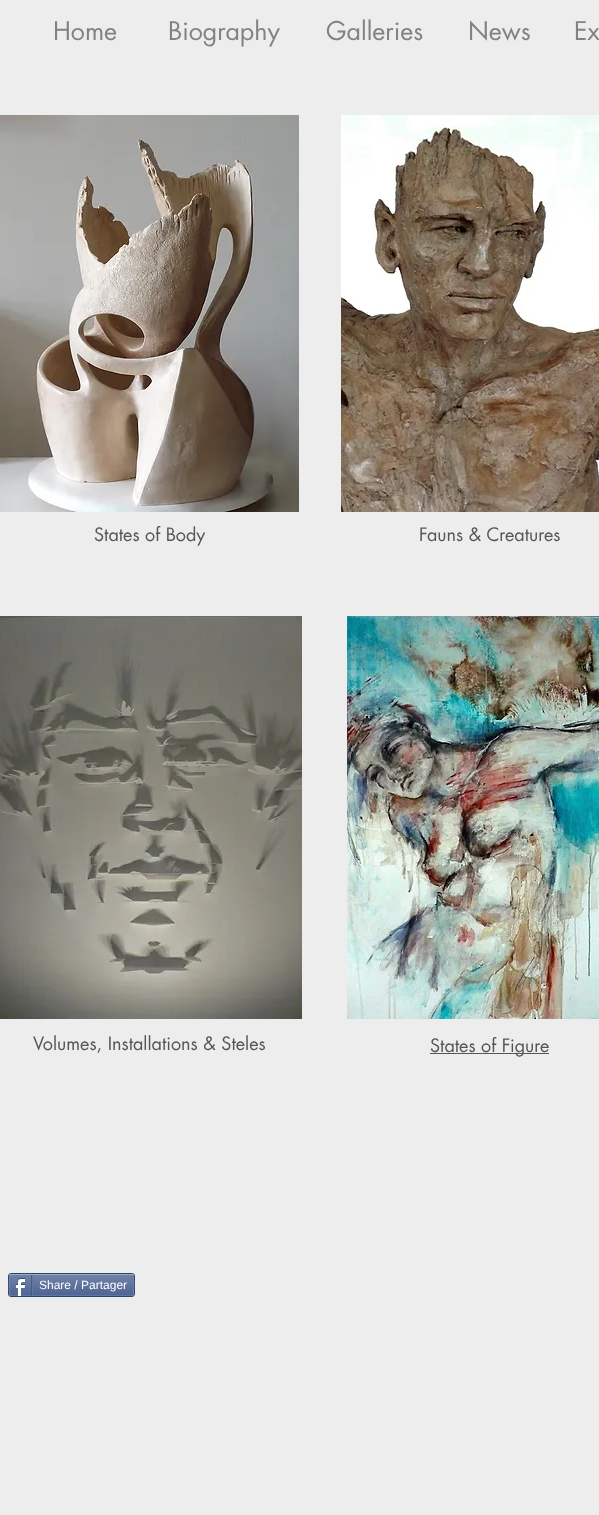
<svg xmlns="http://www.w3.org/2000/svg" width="599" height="1515">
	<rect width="100%" height="100%" fill="#EDEDED" />
	<g font-family="futura" font-size="25" fill="#828282">
		<text x="53" y="40">Home</text>
		<text x="168" y="40">Biography</text>
		<text x="326" y="40">Galleries</text>
		<text x="468" y="40">News</text>
		<text x="574" y="40">Ex</text>
	</g>
	<image x="0" y="115" width="299" height="397" href="assets/img1.png" />
	<image x="341" y="115" width="258" height="397" href="assets/img2.png" />
	<g font-family="futura" font-size="18" fill="#565656">
		<text x="94" y="541">States of Body</text>
		<text x="419" y="541">Fauns &amp; Creatures</text>
	</g>
	<image x="0" y="616" width="302" height="403" href="assets/img3.png" />
	<image x="347" y="616" width="252" height="403" href="assets/img4.png" />
	<text x="33" y="1050" font-family="futura" font-size="18" fill="#565656">Volumes, Installations &amp; Steles</text>
	<rect x="430" y="1053" width="119" height="1" fill="#565656" />
	<text x="430" y="1052" font-family="futura" font-size="18" fill="#565656">States of Figure</text>
	<rect x="8.5" y="1273.5" width="126" height="23" rx="2.5" fill="none" stroke="#2D4565" />
	<image x="9" y="1275" width="125" height="21" href="assets/img5.png" />
	<path d="M10 1275L11 1274.5H132L133 1275" fill="none" stroke="#9AABC6" />
	<path d="M133 1275C134 1275.5 134 1294.5 133 1295" fill="none" stroke="#6F83AD" />
	<path d="M133 1295L132 1295.5H11L10 1295" fill="none" stroke="#6176A3" />
	<path d="M10 1295C9 1294.5 9 1275.5 10 1275" fill="none" stroke="#6F83AD" />
	<image x="15" y="1278" width="10" height="18" href="assets/img6.png" />
	<rect x="31" y="1275" width="1" height="21" fill="#425E85" />
	<text x="39" y="1289" font-family="Liberation Sans" font-size="12" fill="#FFFFFF">Share / Partager</text>
	<rect x="32" y="1275" width="1" height="20" fill="#6176A3" />
</svg>
